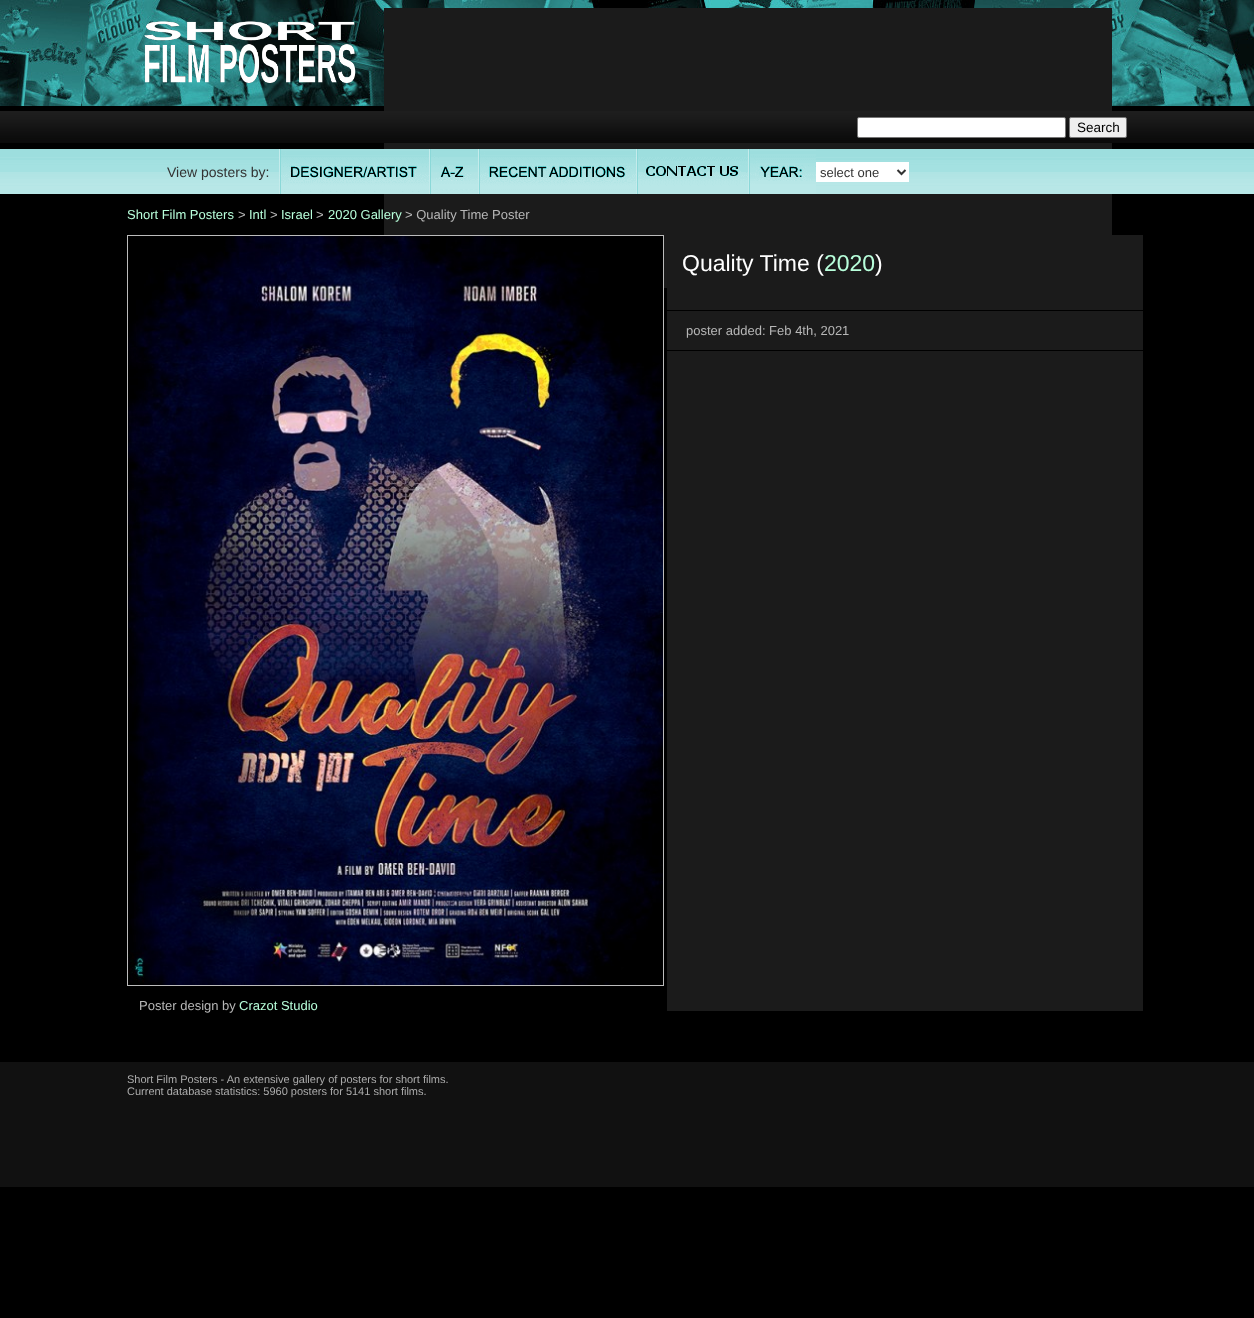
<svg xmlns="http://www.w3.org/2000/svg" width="1254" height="1318">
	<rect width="100%" height="100%" fill="#000000" />
	<image x="0" y="0" width="1254" height="106" href="assets/img1.png" />
	<image x="144" y="21" width="212" height="62" href="assets/img2.png" />
	<rect x="384" y="8" width="728" height="280" fill="#1B1B1B" />
	<image x="0" y="111" width="1254" height="32" href="assets/img3.png" />
	<rect x="857.5" y="117.5" width="208" height="20" rx="1.5" fill="#FFFFFF" stroke="#767676" />
	<rect x="1069.5" y="117.5" width="57" height="20" rx="1.5" fill="#EFEFEF" stroke="#767676" />
	<text x="1077" y="132" font-family="Liberation Sans" font-size="13.5" fill="#000000">Search</text>
	<image x="0" y="149" width="1254" height="45" href="assets/img4.png" />
	<text x="167" y="177" font-family="Liberation Sans" font-size="14" fill="#333333">View posters by:</text>
	<image x="279" y="149" width="150" height="45" href="assets/img5.png" />
	<image x="429" y="149" width="49" height="45" href="assets/img6.png" />
	<image x="478" y="149" width="158" height="45" href="assets/img7.png" />
	<image x="636" y="149" width="112" height="45" href="assets/img8.png" />
	<image x="748" y="149" width="68" height="45" href="assets/img9.png" />
	<rect x="816" y="162" width="93" height="20" fill="#FFFFFF" />
	<path d="M897.5 170L901.5 174L905.5 170" fill="none" stroke="#333333" stroke-width="2" />
	<text x="820" y="177" font-family="Liberation Sans" font-size="13" fill="#333333">select one</text>
	<text x="127" y="219" font-family="Liberation Sans" font-size="13" fill="#B8FFDB">Short Film Posters</text>
	<text x="238" y="219" font-family="Liberation Sans" font-size="13" fill="#B7B7B7">&gt;</text>
	<text x="249" y="219" font-family="Liberation Sans" font-size="13" fill="#B8FFDB">Intl</text>
	<text x="270" y="219" font-family="Liberation Sans" font-size="13" fill="#B7B7B7">&gt;</text>
	<text x="281" y="219" font-family="Liberation Sans" font-size="13" fill="#B8FFDB">Israel</text>
	<text x="316" y="219" font-family="Liberation Sans" font-size="13" fill="#B7B7B7">&gt;</text>
	<text x="328" y="219" font-family="Liberation Sans" font-size="13" fill="#B8FFDB">2020 Gallery</text>
	<text x="405" y="219" font-family="Liberation Sans" font-size="13" fill="#B7B7B7">&gt; Quality Time Poster</text>
	<rect x="667" y="235" width="476" height="75" fill="#1B1B1B" />
	<text x="682" y="271" font-family="Liberation Sans" font-size="23" fill="#FFFFFF">Quality Time (</text>
	<text x="824" y="271" font-family="Liberation Sans" font-size="23" fill="#B8FFDB">2020</text>
	<text x="875" y="271" font-family="Liberation Sans" font-size="23" fill="#FFFFFF">)</text>
	<rect x="667" y="311" width="476" height="39" fill="#1B1B1B" />
	<text x="686" y="335" font-family="Liberation Sans" font-size="13" fill="#B7B7B7">poster added: Feb 4th, 2021</text>
	<rect x="667" y="351" width="476" height="660" fill="#1B1B1B" />
	<rect x="127.5" y="235.5" width="536" height="750" fill="none" stroke="#BCBCBC" />
	<image x="128" y="236" width="535" height="749" href="assets/img10.png" />
	<text x="139" y="1010" font-family="Liberation Sans" font-size="13" fill="#B7B7B7">Poster design by</text>
	<text x="239" y="1010" font-family="Liberation Sans" font-size="13" fill="#B8FFDB">Crazot Studio</text>
	<rect x="0" y="1062" width="1254" height="125" fill="#111111" />
	<g font-family="Liberation Sans" font-size="11" fill="#ACACAC">
		<text x="127" y="1083">Short Film Posters - An extensive gallery of posters for short films.</text>
		<text x="127" y="1095">Current database statistics: 5960 posters for 5141 short films.</text>
	</g>
</svg>
